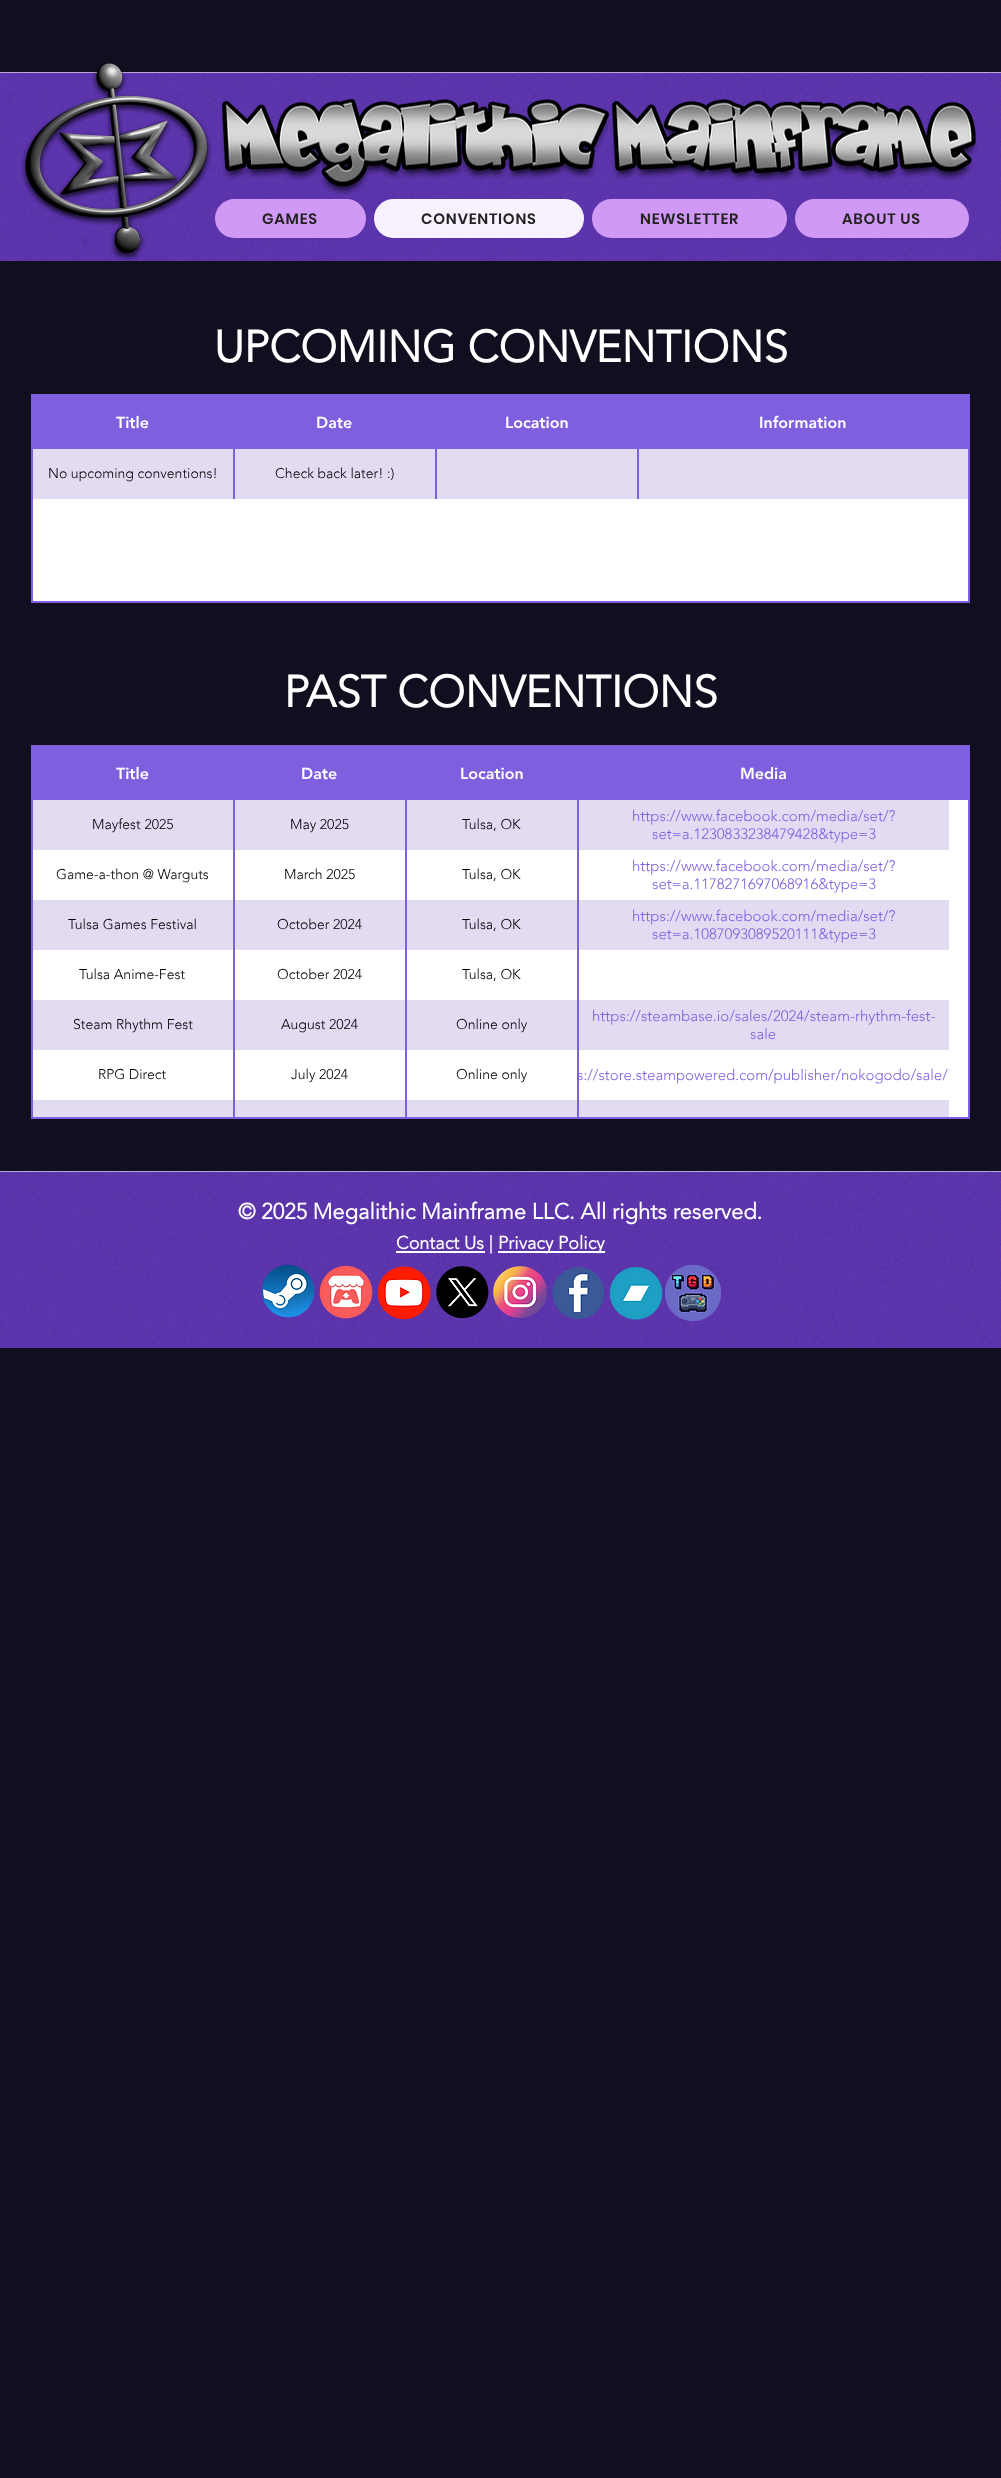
<svg xmlns="http://www.w3.org/2000/svg" width="1001" height="2478">
	<defs>
		<clipPath id="clip1"><rect x="579" y="1050" width="370" height="50" /></clipPath>
	</defs>
	<rect width="100%" height="100%" fill="#110F1F" />
	<rect x="0" y="73" width="1001" height="188" fill="#5D34B0" />
	<rect x="0" y="72" width="1001" height="1" fill="#BDACDF" />
	<image x="0" y="72" width="1001" height="189" href="assets/img2.png" />
	<image x="21" y="63" width="191" height="198" href="assets/img1.png" />
	<image x="220" y="98" width="758" height="97" href="assets/img3.png" />
	<rect x="215" y="199" width="151" height="39" rx="19.5" fill="#D099F5" />
	<text x="262" y="224" font-family="Poppins" font-size="15" font-weight="600" letter-spacing="0.75" fill="#242323">GAMES</text>
	<rect x="374" y="199" width="210" height="39" rx="19.5" fill="#F8F2FF" />
	<text x="421" y="224" font-family="Poppins" font-size="15" font-weight="600" letter-spacing="0.75" fill="#242323">CONVENTIONS</text>
	<rect x="592" y="199" width="195" height="39" rx="19.5" fill="#D099F5" />
	<text x="640" y="224" font-family="Poppins" font-size="15" font-weight="600" letter-spacing="0.75" fill="#242323">NEWSLETTER</text>
	<rect x="795" y="199" width="174" height="39" rx="19.5" fill="#D099F5" />
	<text x="842" y="224" font-family="Poppins" font-size="15" font-weight="600" letter-spacing="0.75" fill="#242323">ABOUT US</text>
	<text x="214" y="362" font-family="'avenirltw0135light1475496'" font-size="44" font-weight="700" fill="#FFFFFF">UPCOMING CONVENTIONS</text>
	<rect x="33" y="499" width="935" height="102" fill="#FFFFFF" />
	<rect x="32" y="395" width="937" height="207" fill="none" stroke="#7E60DF" stroke-width="2" />
	<rect x="33" y="396" width="935" height="53" fill="#7E60DF" />
	<g font-family="'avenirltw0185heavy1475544'" font-size="16" font-weight="900" fill="#FFFFFF">
		<text x="116" y="428">Title</text>
		<text x="316" y="428">Date</text>
		<text x="505" y="428">Location</text>
		<text x="759" y="428">Information</text>
	</g>
	<rect x="33" y="449" width="935" height="50" fill="#E2DBF2" />
	<rect x="233" y="449" width="2" height="50" fill="#7E60DF" />
	<text x="48" y="478" font-family="'avenirltw0135light1475496'" font-size="14" font-weight="300" fill="#000000">No upcoming conventions!</text>
	<rect x="435" y="449" width="2" height="50" fill="#7E60DF" />
	<text x="275" y="478" font-family="'avenirltw0135light1475496'" font-size="14" font-weight="300" fill="#000000">Check back later! :)</text>
	<rect x="637" y="449" width="2" height="50" fill="#7E60DF" />
	<text x="284" y="707" font-family="'avenirltw0135light1475496'" font-size="44" font-weight="700" fill="#FFFFFF">PAST CONVENTIONS</text>
	<rect x="33" y="800" width="935" height="317" fill="#FFFFFF" />
	<rect x="32" y="746" width="937" height="372" fill="none" stroke="#7E60DF" stroke-width="2" />
	<rect x="33" y="747" width="935" height="53" fill="#7E60DF" />
	<g font-family="'avenirltw0185heavy1475544'" font-size="16" font-weight="900" fill="#FFFFFF">
		<text x="116" y="779">Title</text>
		<text x="301" y="779">Date</text>
		<text x="460" y="779">Location</text>
		<text x="740" y="779">Media</text>
	</g>
	<rect x="33" y="800" width="916" height="50" fill="#E2DBF2" />
	<rect x="233" y="800" width="2" height="100" fill="#7E60DF" />
	<text x="92" y="829" font-family="'avenirltw0135light1475496'" font-size="14" font-weight="300" fill="#000000">Mayfest 2025</text>
	<rect x="405" y="800" width="2" height="100" fill="#7E60DF" />
	<text x="290" y="829" font-family="'avenirltw0135light1475496'" font-size="14" font-weight="300" fill="#000000">May 2025</text>
	<rect x="577" y="800" width="2" height="100" fill="#7E60DF" />
	<text x="462" y="829" font-family="'avenirltw0135light1475496'" font-size="14" font-weight="300" fill="#000000">Tulsa, OK</text>
	<g font-family="'avenirltw0135light1475496'" font-size="15" font-weight="300" fill="#7E60DF">
		<text x="632" y="821">https://www.facebook.com/media/set/?</text>
		<text x="652" y="839">set=a.1230833238479428&amp;type=3</text>
	</g>
	<g font-family="'avenirltw0135light1475496'" font-size="14" font-weight="300" fill="#000000">
		<text x="56" y="879">Game-a-thon @ Warguts</text>
		<text x="284" y="879">March 2025</text>
		<text x="462" y="879">Tulsa, OK</text>
	</g>
	<g font-family="'avenirltw0135light1475496'" font-size="15" font-weight="300" fill="#7E60DF">
		<text x="632" y="871">https://www.facebook.com/media/set/?</text>
		<text x="652" y="889">set=a.1178271697068916&amp;type=3</text>
	</g>
	<rect x="33" y="900" width="916" height="50" fill="#E2DBF2" />
	<rect x="233" y="900" width="2" height="100" fill="#7E60DF" />
	<text x="68" y="929" font-family="'avenirltw0135light1475496'" font-size="14" font-weight="300" fill="#000000">Tulsa Games Festival</text>
	<rect x="405" y="900" width="2" height="100" fill="#7E60DF" />
	<text x="277" y="929" font-family="'avenirltw0135light1475496'" font-size="14" font-weight="300" fill="#000000">October 2024</text>
	<rect x="577" y="900" width="2" height="100" fill="#7E60DF" />
	<text x="462" y="929" font-family="'avenirltw0135light1475496'" font-size="14" font-weight="300" fill="#000000">Tulsa, OK</text>
	<g font-family="'avenirltw0135light1475496'" font-size="15" font-weight="300" fill="#7E60DF">
		<text x="632" y="921">https://www.facebook.com/media/set/?</text>
		<text x="652" y="939">set=a.1087093089520111&amp;type=3</text>
	</g>
	<g font-family="'avenirltw0135light1475496'" font-size="14" font-weight="300" fill="#000000">
		<text x="79" y="979">Tulsa Anime-Fest</text>
		<text x="277" y="979">October 2024</text>
		<text x="462" y="979">Tulsa, OK</text>
	</g>
	<rect x="33" y="1000" width="916" height="50" fill="#E2DBF2" />
	<rect x="233" y="1000" width="2" height="100" fill="#7E60DF" />
	<text x="73" y="1029" font-family="'avenirltw0135light1475496'" font-size="14" font-weight="300" fill="#000000">Steam Rhythm Fest</text>
	<rect x="405" y="1000" width="2" height="100" fill="#7E60DF" />
	<text x="281" y="1029" font-family="'avenirltw0135light1475496'" font-size="14" font-weight="300" fill="#000000">August 2024</text>
	<rect x="577" y="1000" width="2" height="100" fill="#7E60DF" />
	<text x="456" y="1029" font-family="'avenirltw0135light1475496'" font-size="14" font-weight="300" fill="#000000">Online only</text>
	<g font-family="'avenirltw0135light1475496'" font-size="15" font-weight="300" fill="#7E60DF">
		<text x="592" y="1021">https://steambase.io/sales/2024/steam-rhythm-fest-</text>
		<text x="750" y="1039">sale</text>
	</g>
	<g font-family="'avenirltw0135light1475496'" font-size="14" font-weight="300" fill="#000000">
		<text x="98" y="1079">RPG Direct</text>
		<text x="291" y="1079">July 2024</text>
		<text x="456" y="1079">Online only</text>
	</g>
	<g clip-path="url(#clip1)">
		<text x="577" y="1080" font-family="'avenirltw0135light1475496'" font-size="15" font-weight="300" fill="#7E60DF">s://store.steampowered.com/publisher/nokogodo/sale/</text>
	</g>
	<rect x="33" y="1100" width="916" height="17" fill="#E2DBF2" />
	<rect x="233" y="1100" width="2" height="17" fill="#7E60DF" />
	<rect x="405" y="1100" width="2" height="17" fill="#7E60DF" />
	<rect x="577" y="1100" width="2" height="17" fill="#7E60DF" />
	<rect x="0" y="1172" width="1001" height="176" fill="#5D34B0" />
	<rect x="0" y="1171" width="1001" height="1" fill="#BDACDF" />
	<image x="0" y="1171" width="1001" height="177" href="assets/img4.png" />
	<text x="238" y="1219" font-family="'avenirltw0135light1475496'" font-size="22" font-weight="700" fill="#FFFFFF">© 2025 Megalithic Mainframe LLC. All rights reserved.</text>
	<rect x="396" y="1251" width="89" height="2" fill="#FFFFFF" />
	<text x="396" y="1249" font-family="'avenirltw0135light1475496'" font-size="18" font-weight="700" fill="#FFFFFF">Contact Us |</text>
	<rect x="498" y="1251" width="107" height="2" fill="#FFFFFF" />
	<text x="498" y="1249" font-family="'avenirltw0135light1475496'" font-size="18" font-weight="700" fill="#FFFFFF">Privacy Policy</text>
	<image x="261" y="1264" width="54" height="54" href="assets/img5.png" />
	<image x="319" y="1265" width="54" height="54" href="assets/img6.png" />
	<image x="375" y="1266" width="56" height="54" href="assets/img7.png" />
	<image x="436" y="1266" width="53" height="53" href="assets/img8.png" />
	<image x="493" y="1266" width="55" height="52" href="assets/img9.png" />
	<image x="552" y="1267" width="53" height="53" href="assets/img10.png" />
	<image x="609" y="1266" width="54" height="54" href="assets/img11.png" />
	<image x="665" y="1265" width="56" height="56" href="assets/img12.png" />
</svg>
